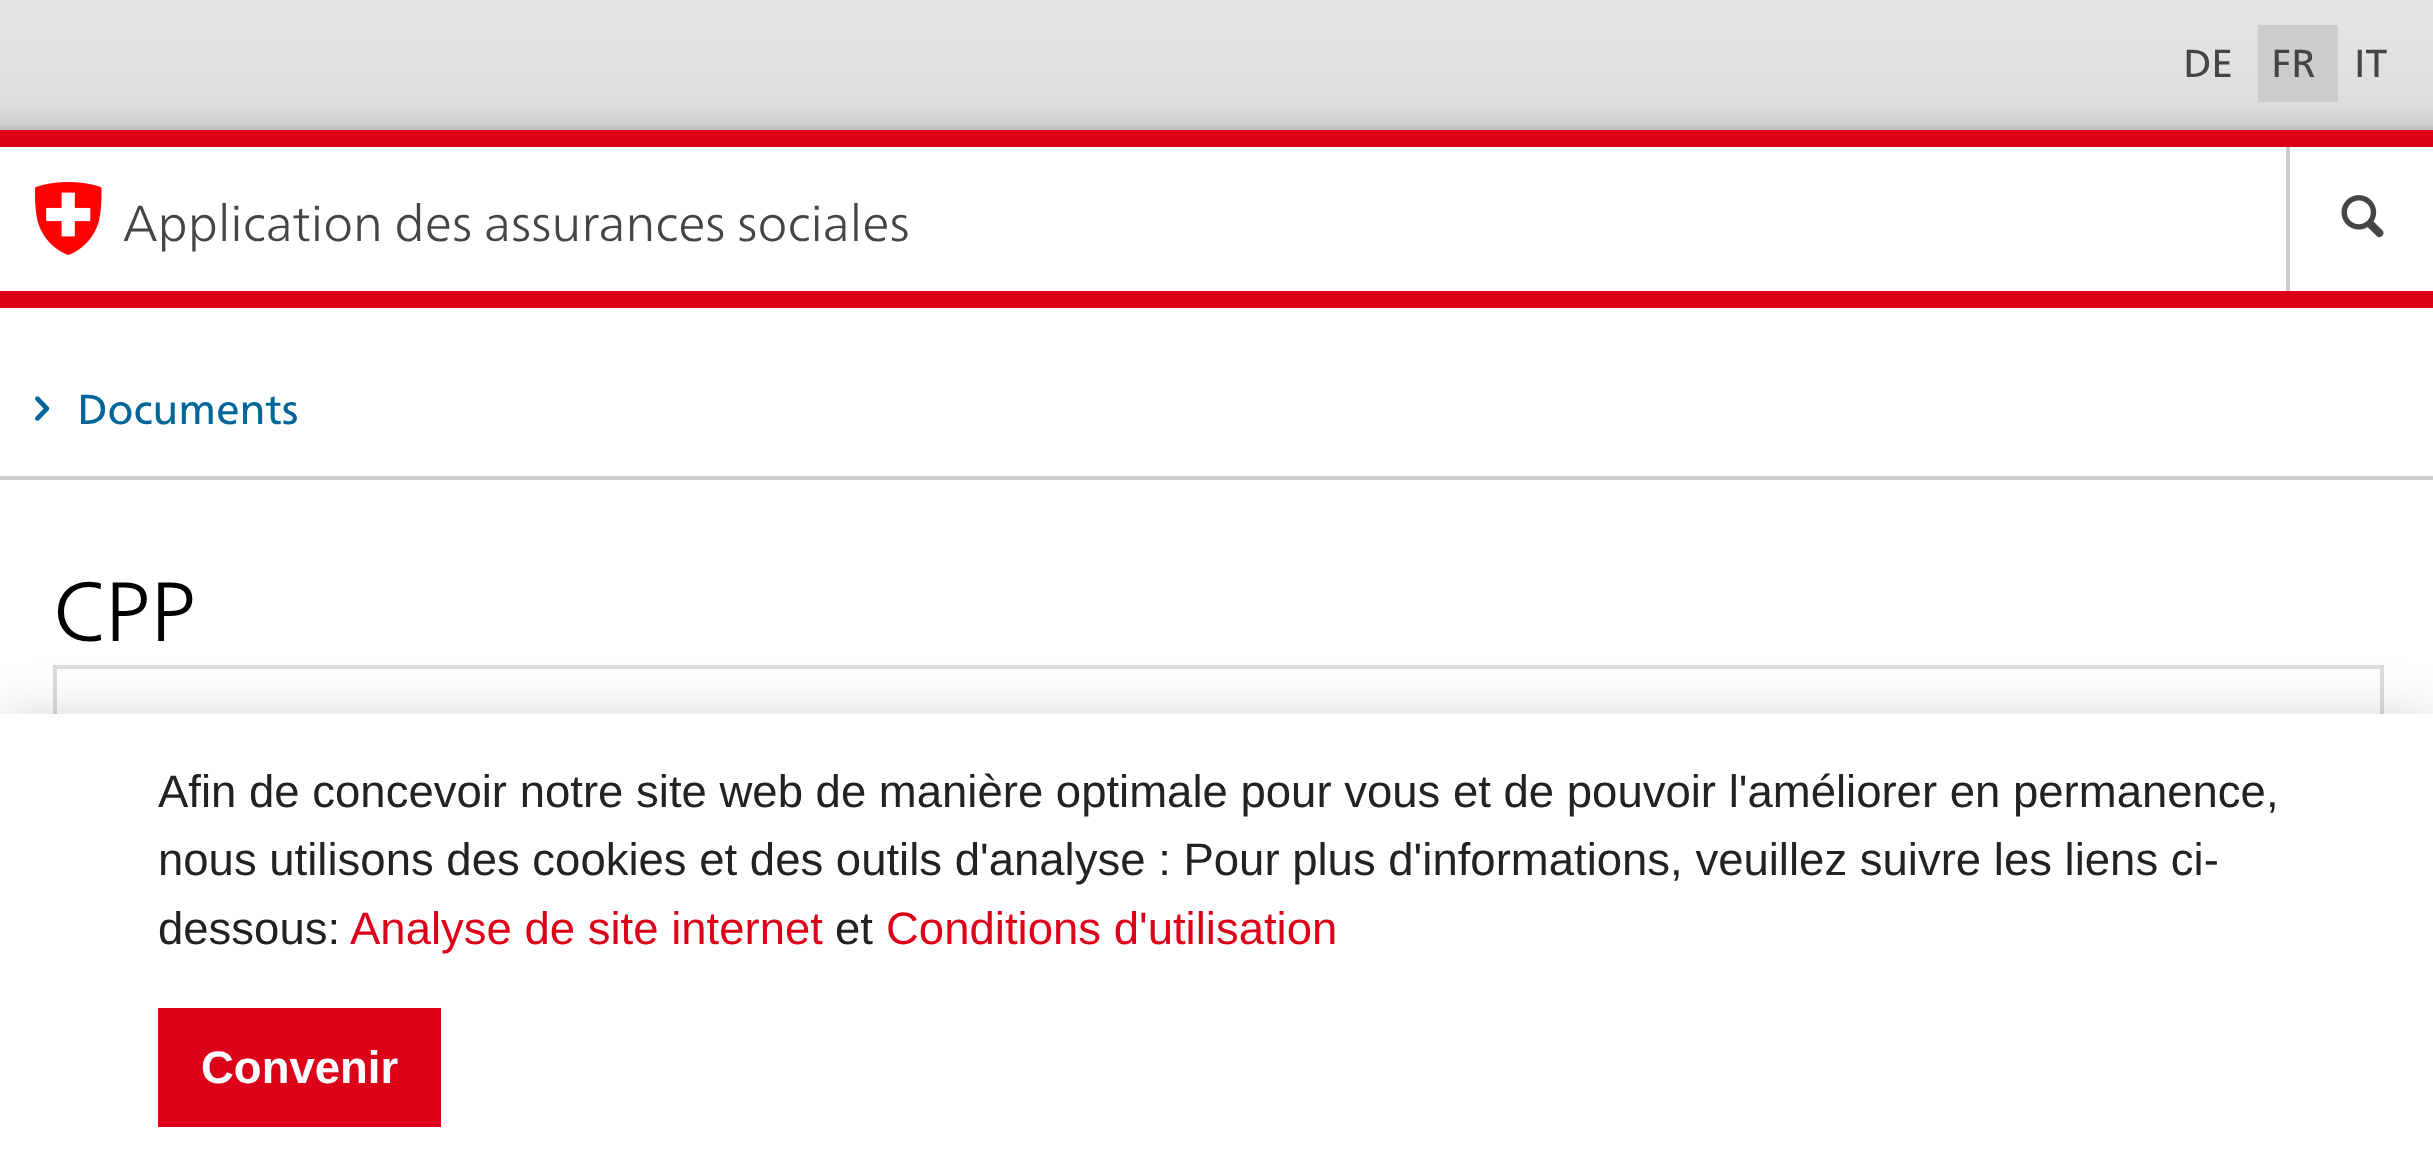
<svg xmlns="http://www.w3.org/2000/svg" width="2433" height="1172">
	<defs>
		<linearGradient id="g1" gradientUnits="userSpaceOnUse" x1="1218" y1="0" x2="1218" y2="130"><stop offset="0" stop-color="#E4E4E4" /><stop offset="0.39" stop-color="#E2E2E2" /><stop offset="0.79" stop-color="#DDDDDD" /><stop offset="0.91" stop-color="#D5D5D5" /><stop offset="0.95" stop-color="#CFCFCF" /><stop offset="0.99" stop-color="#BEBEBE" /></linearGradient>
	</defs>
	<rect width="100%" height="100%" fill="#FFFFFF" />
	<rect x="0" y="0" width="2433" height="130" fill="url(#g1)" />
	<text x="2183" y="77" font-family="'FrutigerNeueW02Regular'" font-size="39" fill="#454545">DE</text>
	<rect x="2258" y="25" width="80" height="77" fill="#CCCCCC" />
	<g font-family="'FrutigerNeueW02Regular'" font-size="39" fill="#454545">
		<text x="2271" y="77">FR</text>
		<text x="2354" y="77">IT</text>
	</g>
	<rect x="0" y="130" width="2433" height="17" fill="#DC0018" />
	<image x="35" y="182" width="67" height="73" href="assets/img1.png" />
	<text x="123" y="241" font-family="'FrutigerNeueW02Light'" font-size="50.4" font-weight="300" fill="#454545">Application des assurances sociales</text>
	<rect x="2286" y="147" width="4" height="144" fill="#CCCCCC" />
	<image x="2341" y="195" width="43" height="43" href="assets/img2.png" />
	<rect x="0" y="291" width="2433" height="17" fill="#DC0018" />
	<rect x="0" y="476" width="2433" height="4" fill="#CCCCCC" />
	<image x="35" y="396" width="15" height="25" href="assets/img3.png" />
	<text x="77" y="424" font-family="'FrutigerNeueW02Regular'" font-size="42" fill="#006699">Documents</text>
	<text x="53" y="641" font-family="'FrutigerNeueW02Light'" font-size="84" font-weight="300" fill="#000000">CPP</text>
	<rect x="53" y="665" width="2331" height="4" fill="#DDDDDD" />
	<rect x="2380" y="665" width="4" height="49" fill="#DDDDDD" />
	<rect x="53" y="665" width="4" height="49" fill="#DDDDDD" />
	<rect x="0" y="714" width="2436" height="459" fill="#000000" fill-opacity="0.15" filter="blur(26px)" />
	<rect x="0" y="714" width="2433" height="458" fill="#FFFFFF" />
	<g font-family="Liberation Sans" font-size="45.5" fill="#222222">
		<text x="158" y="807">Afin de concevoir notre site web de manière optimale pour vous et de pouvoir l'améliorer en permanence,</text>
		<text x="158" y="875">nous utilisons des cookies et des outils d'analyse : Pour plus d'informations, veuillez suivre les liens ci-</text>
		<text x="158" y="944">dessous:</text>
	</g>
	<text x="350" y="944" font-family="Liberation Sans" font-size="45.5" fill="#DC0018">Analyse de site internet</text>
	<text x="835" y="944" font-family="Liberation Sans" font-size="45.5" fill="#222222">et</text>
	<text x="886" y="944" font-family="Liberation Sans" font-size="45.5" fill="#DC0018">Conditions d'utilisation</text>
	<rect x="158" y="1008" width="283" height="119" fill="#DC0018" />
	<text x="201" y="1083" font-family="Liberation Sans" font-size="45.5" font-weight="700" fill="#FFFFFF">Convenir</text>
</svg>
